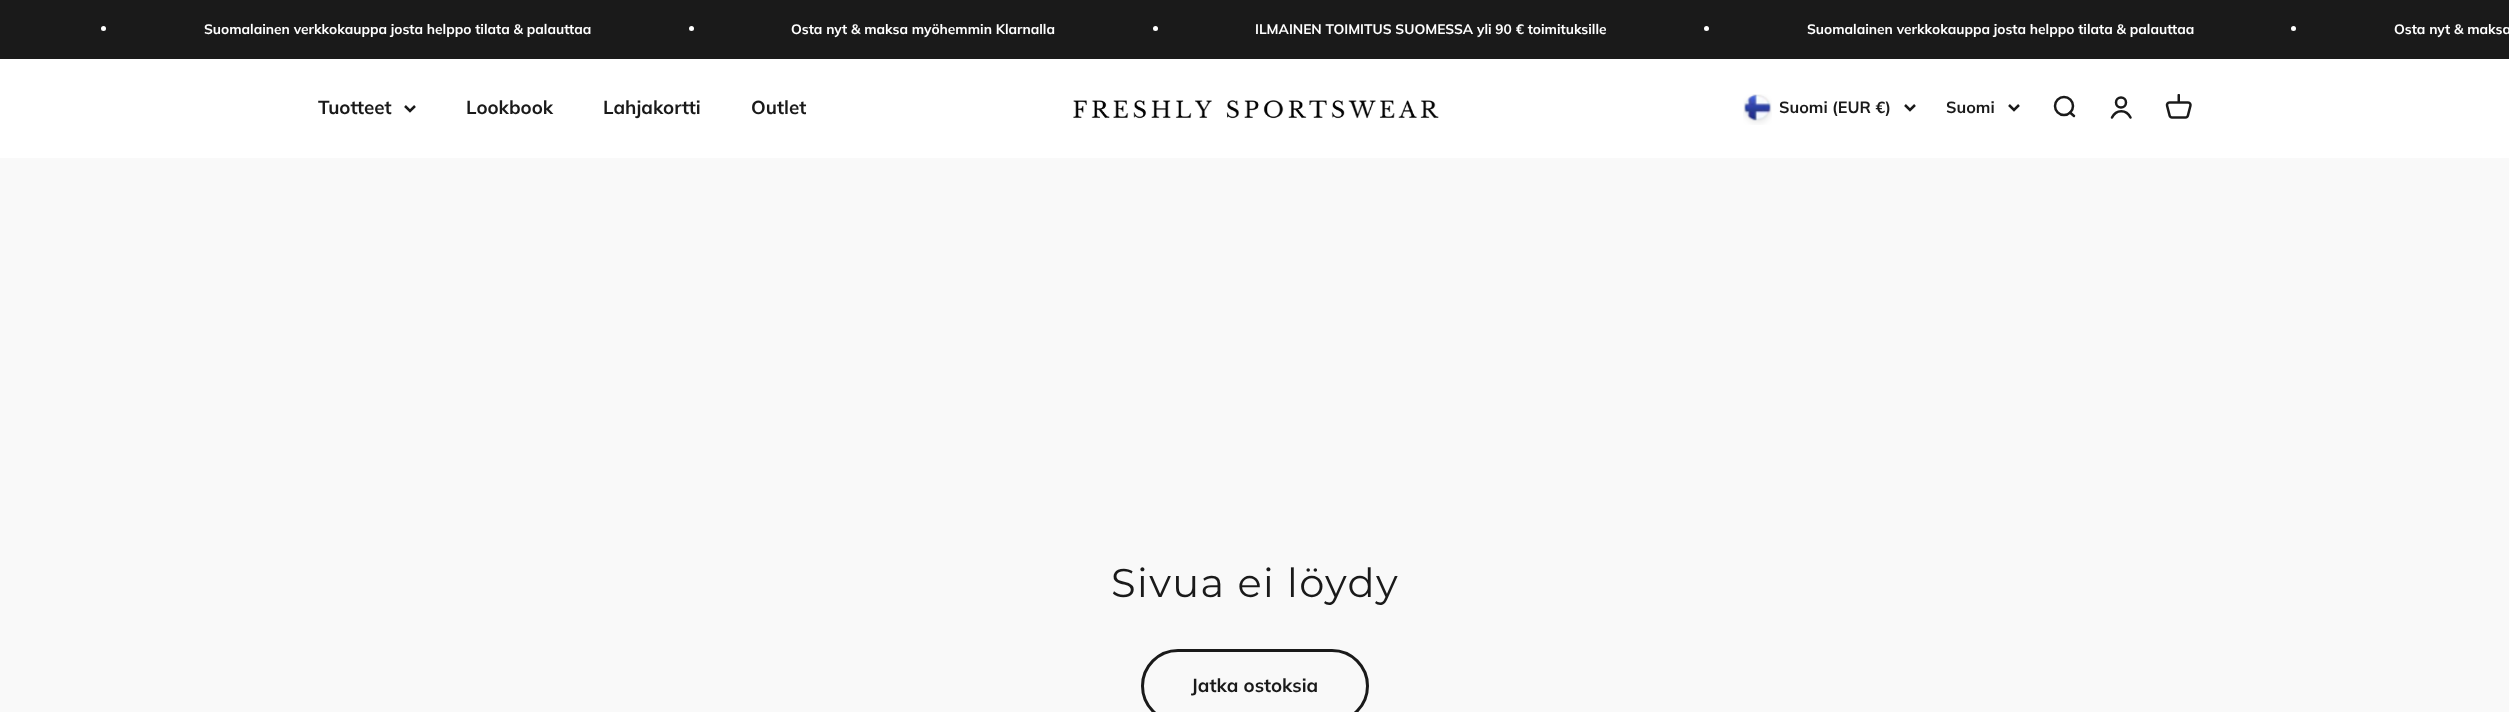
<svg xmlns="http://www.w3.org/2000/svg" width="2509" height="712">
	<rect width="100%" height="100%" fill="#F9F9F9" />
	<rect x="0" y="0" width="2509" height="59" fill="#1A1A1A" />
	<circle cx="103.5" cy="28.5" r="2.5" fill="#FFFFFF" />
	<text x="204" y="34" font-family="Muli" font-size="13.75" font-weight="700" fill="#FFFFFF">Suomalainen verkkokauppa josta helppo tilata &amp; palauttaa</text>
	<circle cx="691.5" cy="28.5" r="2.5" fill="#FFFFFF" />
	<text x="791" y="34" font-family="Muli" font-size="13.75" font-weight="700" fill="#FFFFFF">Osta nyt &amp; maksa myöhemmin Klarnalla</text>
	<circle cx="1155.5" cy="28.5" r="2.5" fill="#FFFFFF" />
	<text x="1255" y="34" font-family="Muli" font-size="13.75" font-weight="700" fill="#FFFFFF">ILMAINEN TOIMITUS SUOMESSA yli 90 € toimituksille</text>
	<circle cx="1706.5" cy="28.5" r="2.5" fill="#FFFFFF" />
	<text x="1807" y="34" font-family="Muli" font-size="13.75" font-weight="700" fill="#FFFFFF">Suomalainen verkkokauppa josta helppo tilata &amp; palauttaa</text>
	<circle cx="2293.5" cy="28.5" r="2.5" fill="#FFFFFF" />
	<text x="2394" y="34" font-family="Muli" font-size="13.75" font-weight="700" fill="#FFFFFF">Osta nyt &amp; maksa</text>
	<rect x="0" y="59" width="2509" height="99" fill="#FFFFFF" />
	<text x="318" y="114" font-family="Muli" font-size="18.75" font-weight="700" fill="#1A1A1A">Tuotteet</text>
	<path d="M405 106L410 111L415 106" fill="none" stroke="#1A1A1A" stroke-width="2.5" />
	<g font-family="Muli" font-size="18.75" font-weight="700" fill="#1A1A1A">
		<text x="466" y="114">Lookbook</text>
		<text x="603" y="114">Lahjakortti</text>
		<text x="751" y="114">Outlet</text>
	</g>
	<image x="1073" y="100" width="366" height="19" href="assets/img1.png" />
	<image x="1743" y="94" width="29" height="31" href="assets/img2.png" />
	<text x="1779" y="113" font-family="Muli" font-size="16.25" font-weight="700" fill="#1A1A1A">Suomi (EUR €)</text>
	<path d="M1905 105L1910 110L1915 105" fill="none" stroke="#1A1A1A" stroke-width="2.5" />
	<text x="1946" y="113" font-family="Muli" font-size="16.25" font-weight="700" fill="#1A1A1A">Suomi</text>
	<path d="M2009 105L2014 110L2019 105" fill="none" stroke="#1A1A1A" stroke-width="2.5" />
	<circle cx="2064" cy="106" r="9" fill="none" stroke="#1A1A1A" stroke-width="2.5" />
	<path d="M2070 112.5L2074 116" fill="none" stroke="#1A1A1A" stroke-width="2.5" stroke-linecap="round" stroke-linejoin="round" />
	<circle cx="2121" cy="102.5" r="5" fill="none" stroke="#1A1A1A" stroke-width="2.5" />
	<path d="M2112 117.5C2116 109 2126.5 109 2130.5 117.5" fill="none" stroke="#1A1A1A" stroke-width="2.5" stroke-linecap="round" />
	<image x="2165" y="94" width="27" height="25" href="assets/img3.png" />
	<text x="1111" y="597" font-family="Montserrat" font-size="40" letter-spacing="1.4" fill="#1A1A1A">Sivua ei löydy</text>
	<rect x="1142.5" y="650.5" width="225" height="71" rx="35.5" fill="none" stroke="#1A1A1A" stroke-width="3" />
	<text x="1191" y="692" font-family="Muli" font-size="18.75" font-weight="700" fill="#1A1A1A">Jatka ostoksia</text>
</svg>
